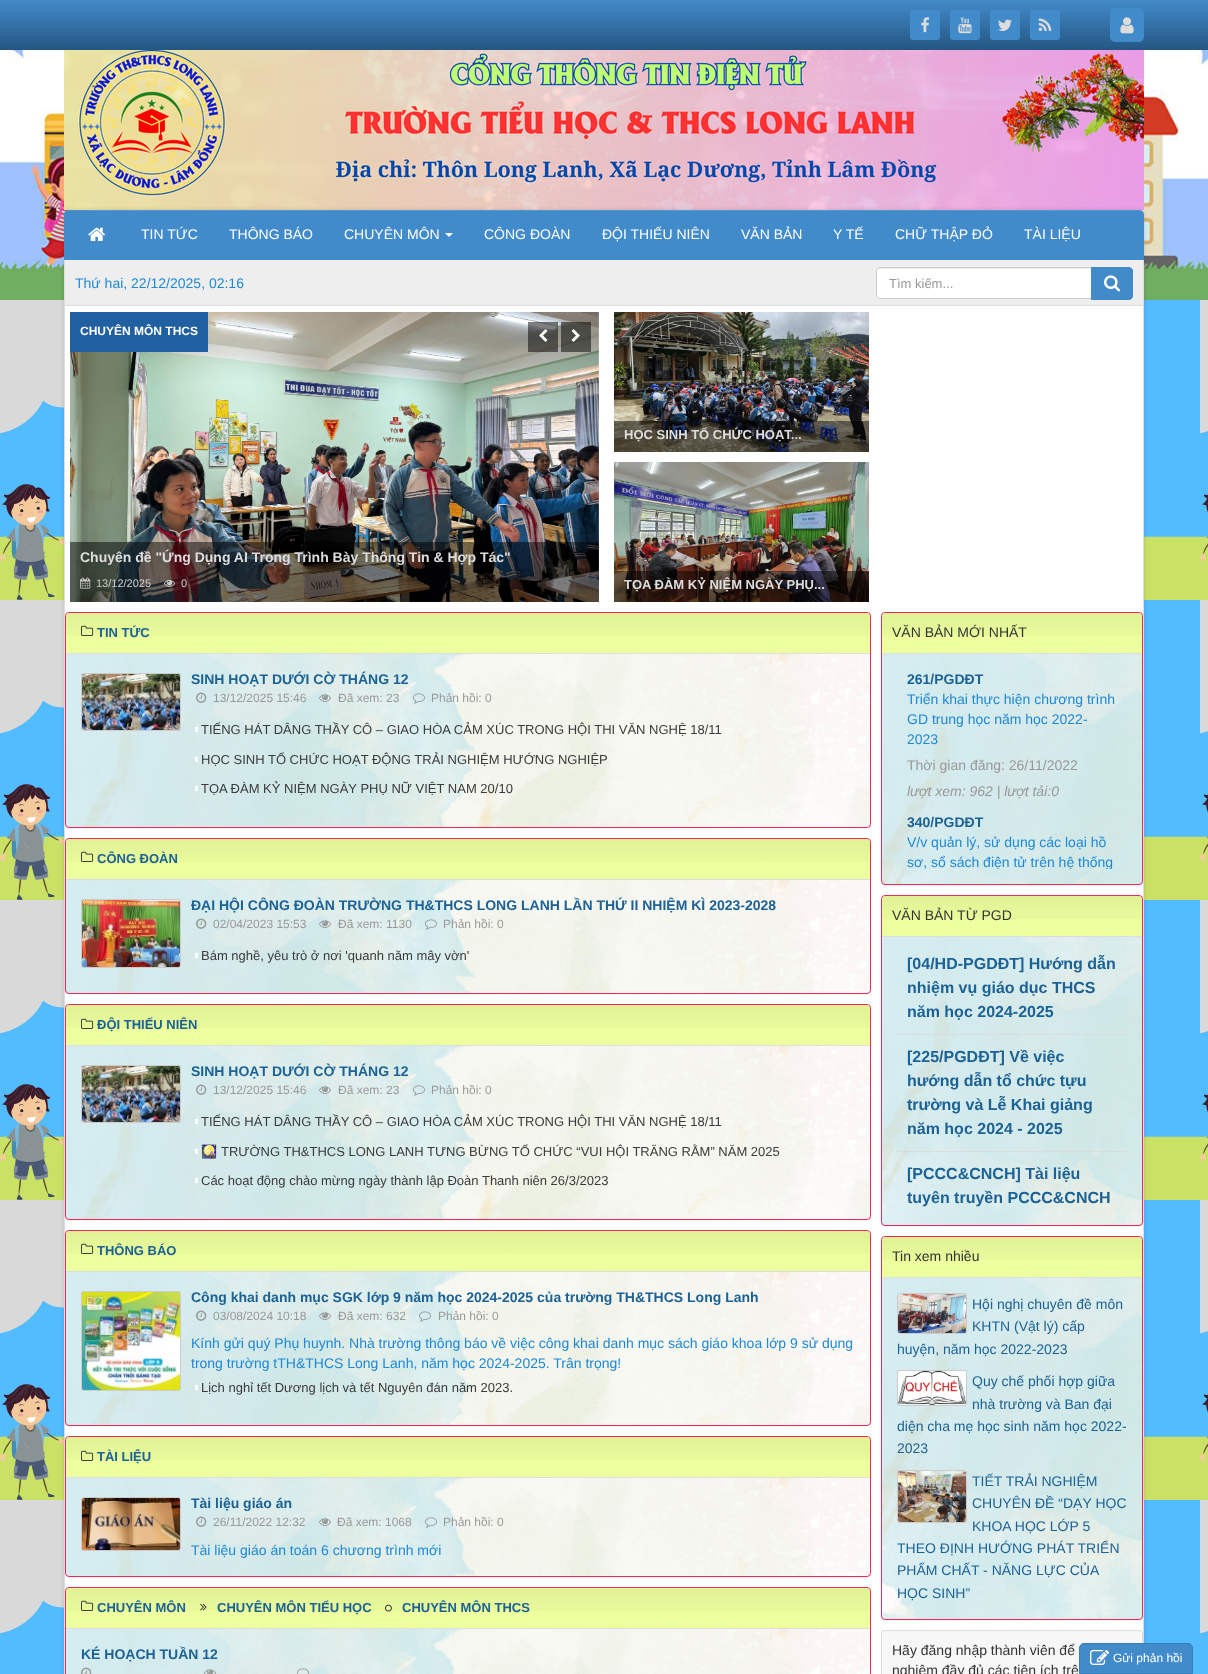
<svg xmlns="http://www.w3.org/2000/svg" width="1208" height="1674">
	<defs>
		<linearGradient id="g1" gradientUnits="userSpaceOnUse" x1="604" y1="0" x2="604" y2="50"><stop offset="0" stop-color="#428BCA" /><stop offset="1" stop-color="#245682" /><stop offset="1" stop-color="#FFFFFF" /></linearGradient>
		<linearGradient id="g2" gradientUnits="userSpaceOnUse" x1="468" y1="613" x2="468" y2="653"><stop offset="0" stop-color="#000000" stop-opacity="0.05" /><stop offset="1" stop-color="#000000" stop-opacity="0" /></linearGradient>
		<linearGradient id="g3" gradientUnits="userSpaceOnUse" x1="468" y1="839" x2="468" y2="879"><stop offset="0" stop-color="#000000" stop-opacity="0.05" /><stop offset="1" stop-color="#000000" stop-opacity="0" /></linearGradient>
		<linearGradient id="g4" gradientUnits="userSpaceOnUse" x1="468" y1="1005" x2="468" y2="1045"><stop offset="0" stop-color="#000000" stop-opacity="0.05" /><stop offset="1" stop-color="#000000" stop-opacity="0" /></linearGradient>
		<linearGradient id="g5" gradientUnits="userSpaceOnUse" x1="468" y1="1231" x2="468" y2="1271"><stop offset="0" stop-color="#000000" stop-opacity="0.05" /><stop offset="1" stop-color="#000000" stop-opacity="0" /></linearGradient>
		<linearGradient id="g6" gradientUnits="userSpaceOnUse" x1="468" y1="1437" x2="468" y2="1477"><stop offset="0" stop-color="#000000" stop-opacity="0.05" /><stop offset="1" stop-color="#000000" stop-opacity="0" /></linearGradient>
		<linearGradient id="g7" gradientUnits="userSpaceOnUse" x1="468" y1="1588" x2="468" y2="1628"><stop offset="0" stop-color="#000000" stop-opacity="0.05" /><stop offset="1" stop-color="#000000" stop-opacity="0" /></linearGradient>
		<linearGradient id="g8" gradientUnits="userSpaceOnUse" x1="1012" y1="613" x2="1012" y2="653"><stop offset="0" stop-color="#000000" stop-opacity="0.05" /><stop offset="1" stop-color="#000000" stop-opacity="0" /></linearGradient>
		<clipPath id="clip1"><rect x="897" y="669" width="230" height="200" /></clipPath>
		<linearGradient id="g9" gradientUnits="userSpaceOnUse" x1="1012" y1="896" x2="1012" y2="936"><stop offset="0" stop-color="#000000" stop-opacity="0.05" /><stop offset="1" stop-color="#000000" stop-opacity="0" /></linearGradient>
		<linearGradient id="g10" gradientUnits="userSpaceOnUse" x1="1012" y1="1237" x2="1012" y2="1277"><stop offset="0" stop-color="#000000" stop-opacity="0.05" /><stop offset="1" stop-color="#000000" stop-opacity="0" /></linearGradient>
	</defs>
	<rect width="100%" height="100%" fill="#FFFFFF" />
	<image x="0" y="300" width="1208" height="1374" href="assets/img1.png" />
	<rect x="0" y="0" width="1208" height="50" fill="url(#g1)" />
	<rect x="910" y="10" width="30" height="30" rx="3" fill="#428BCA" />
	<image x="921" y="17" width="8" height="16" href="assets/img2.png" />
	<rect x="950" y="10" width="30" height="30" rx="3" fill="#428BCA" />
	<image x="958" y="17" width="14" height="17" href="assets/img3.png" />
	<rect x="990" y="10" width="30" height="30" rx="3" fill="#428BCA" />
	<image x="998" y="19" width="14" height="12" href="assets/img4.png" />
	<rect x="1030" y="10" width="30" height="30" rx="3" fill="#428BCA" />
	<image x="1038" y="18" width="14" height="13" href="assets/img5.png" />
	<rect x="1110" y="8" width="34" height="34" rx="5" fill="#428BCA" />
	<image x="1120" y="17" width="14" height="17" href="assets/img6.png" />
	<image x="0" y="50" width="1208" height="250" href="assets/img7.png" />
	<image x="64" y="50" width="1080" height="160" href="assets/img8.png" />
	<rect x="64" y="210" width="1080" height="50" rx="5" fill="#000000" fill-opacity="0.15" filter="blur(2px)" />
	<rect x="64" y="260" width="1080" height="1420" fill="#000000" fill-opacity="0.15" filter="blur(2px)" />
	<path d="M69 210H1139C1142 210 1144 212 1144 215V259H64V215C64 212 66 210 69 210Z" fill="#428BCA" />
	<rect x="64" y="259" width="1080" height="1" fill="#428BCA" />
	<rect x="64" y="210" width="1080" height="1" fill="#FFFFFF" fill-opacity="0.1" />
	<image x="88" y="227" width="17" height="14" href="assets/img9.png" />
	<g font-family="Liberation Sans" font-size="14" fill="#FFFFFF">
		<text x="141" y="239">TIN TỨC</text>
		<text x="229" y="239">THÔNG BÁO</text>
		<text x="344" y="239">CHUYÊN MÔN</text>
	</g>
	<path d="M445 233H453L449 237Z" fill="#FFFFFF" />
	<g font-family="Liberation Sans" font-size="14" fill="#FFFFFF">
		<text x="484" y="239">CÔNG ĐOÀN</text>
		<text x="602" y="239">ĐỘI THIẾU NIÊN</text>
		<text x="741" y="239">VĂN BẢN</text>
		<text x="833" y="239">Y TẾ</text>
		<text x="895" y="239">CHỮ THẬP ĐỎ</text>
		<text x="1024" y="239">TÀI LIỆU</text>
	</g>
	<rect x="65" y="306" width="1078" height="1368" fill="#FFFFFF" />
	<rect x="1143" y="260" width="1" height="1383" fill="#DCDCDC" />
	<rect x="64" y="260" width="1" height="1414" fill="#DCDCDC" />
	<rect x="65" y="305" width="1078" height="1" fill="#DCDCDC" />
	<rect x="65" y="260" width="1078" height="45" fill="#EEEEEE" />
	<text x="75" y="288" font-family="Liberation Sans" font-size="14" fill="#2089D4">Thứ hai, 22/12/2025, 02:16</text>
	<path d="M880 267H1092V299H880C878 299 876 297 876 295V271C876 269 878 267 880 267Z" fill="#FFFFFF" />
	<path d="M880 269H1091V268H880C878 268 877 269 877 271V272C877 270 878 269 880 269Z" fill="#ECECEC" />
	<path d="M880 267.5H1091.5V298.5H880C878 298.5 876.5 297 876.5 295V271C876.5 269 878 267.5 880 267.5Z" fill="none" stroke="#CCCCCC" />
	<text x="889" y="288" font-family="Liberation Sans" font-size="13" fill="#999999">Tìm kiếm...</text>
	<path d="M1091.5 267.5H1129C1131 267.5 1132.5 269 1132.5 271V296C1132.5 298 1131 299.5 1129 299.5H1091.5Z" fill="#428BCA" stroke="#428BCA" />
	<image x="1104" y="275" width="17" height="17" href="assets/img10.png" />
	<image x="70" y="312" width="529" height="290" href="assets/img11.png" />
	<rect x="70" y="312" width="138" height="40" fill="#205FA0" />
	<text x="80" y="335" font-family="Liberation Sans" font-size="12" font-weight="700" fill="#FFFFFF">CHUYÊN MÔN THCS</text>
	<rect x="70" y="542" width="529" height="60" fill="#000000" fill-opacity="0.5" />
	<text x="80" y="562" font-family="Liberation Sans" font-size="14" font-weight="700" fill="#DDDDDD">Chuyên đề "Ứng Dụng AI Trong Trình Bày Thông Tin &amp; Hợp Tác"</text>
	<image x="80" y="577" width="11" height="12" href="assets/img12.png" />
	<text x="96" y="587" font-family="Liberation Sans" font-size="11" fill="#CCCCCC">13/12/2025</text>
	<image x="164" y="579" width="11" height="8" href="assets/img13.png" />
	<text x="181" y="587" font-family="Liberation Sans" font-size="11" fill="#CCCCCC">0</text>
	<rect x="528" y="322" width="30" height="30" fill="#000000" fill-opacity="0.5" />
	<image x="539" y="329" width="9" height="13" href="assets/img14.png" />
	<rect x="561" y="322" width="30" height="30" fill="#000000" fill-opacity="0.5" />
	<image x="571" y="329" width="9" height="13" href="assets/img15.png" />
	<image x="614" y="312" width="255" height="140" href="assets/img16.png" />
	<rect x="614" y="421" width="255" height="31" fill="#000000" fill-opacity="0.5" />
	<text x="624" y="439" font-family="Liberation Sans" font-size="13" font-weight="700" fill="#DDDDDD">HỌC SINH TỔ CHỨC HOẠT...</text>
	<image x="614" y="462" width="255" height="140" href="assets/img17.png" />
	<rect x="614" y="571" width="255" height="31" fill="#000000" fill-opacity="0.5" />
	<text x="624" y="589" font-family="Liberation Sans" font-size="13" font-weight="700" fill="#DDDDDD">TỌA ĐÀM KỶ NIỆM NGÀY PHỤ...</text>
	<rect x="65" y="613" width="806" height="216" rx="4" fill="#000000" fill-opacity="0.05" filter="blur(0.5px)" />
	<image x="65" y="612" width="806" height="216" href="assets/img18.png" />
	<rect x="65.5" y="612.5" width="805" height="215" rx="3.5" fill="none" stroke="#F02B5C" />
	<path d="M69 613H867C868.5 613 870 614.5 870 616V654H66V616C66 614.5 67.5 613 69 613Z" fill="#EDFF9E" />
	<rect x="66" y="613" width="804" height="23" fill="url(#g2)" />
	<rect x="66" y="653" width="804" height="1" fill="#DDDDDD" />
	<image x="81" y="625" width="13" height="11" href="assets/img19.png" />
	<text x="97" y="637" font-family="Liberation Sans" font-size="13" font-weight="700" fill="#1C6294">TIN TỨC</text>
	<rect x="81" y="673" width="100" height="58" rx="3" fill="#CCCCCC" />
	<image x="82" y="674" width="98" height="56" href="assets/img20.png" />
	<text x="191" y="684" font-family="Liberation Sans" font-size="14" font-weight="700" fill="#1C6294">SINH HOẠT DƯỚI CỜ THÁNG 12</text>
	<image x="196" y="692" width="11" height="11" href="assets/img21.png" />
	<text x="213" y="702" font-family="Liberation Sans" font-size="12" fill="#999999">13/12/2025 15:46</text>
	<image x="319" y="694" width="12" height="8" href="assets/img22.png" />
	<text x="338" y="702" font-family="Liberation Sans" font-size="12" fill="#999999">Đã xem: 23</text>
	<image x="413" y="693" width="12" height="11" href="assets/img23.png" />
	<text x="431" y="702" font-family="Liberation Sans" font-size="12" fill="#999999">Phản hồi: 0</text>
	<rect x="195" y="727" width="3" height="5" fill="#FFFFFF" />
	<text x="201" y="734" font-family="Liberation Sans" font-size="13" fill="#3B3B3B">TIẾNG HÁT DÂNG THẦY CÔ – GIAO HÒA CẢM XÚC TRONG HỘI THI VĂN NGHỆ 18/11</text>
	<rect x="195" y="757" width="3" height="5" fill="#FFFFFF" />
	<text x="201" y="764" font-family="Liberation Sans" font-size="13" fill="#3B3B3B">HỌC SINH TỔ CHỨC HOẠT ĐỘNG TRẢI NGHIỆM HƯỚNG NGHIỆP</text>
	<rect x="195" y="786" width="3" height="5" fill="#FFFFFF" />
	<text x="201" y="793" font-family="Liberation Sans" font-size="13" fill="#3B3B3B">TỌA ĐÀM KỶ NIỆM NGÀY PHỤ NỮ VIỆT NAM 20/10</text>
	<rect x="65" y="839" width="806" height="156" rx="4" fill="#000000" fill-opacity="0.05" filter="blur(0.5px)" />
	<image x="65" y="838" width="806" height="156" href="assets/img24.png" />
	<rect x="65.5" y="838.5" width="805" height="155" rx="3.5" fill="none" stroke="#F02B5C" />
	<path d="M69 839H867C868.5 839 870 840.5 870 842V880H66V842C66 840.5 67.5 839 69 839Z" fill="#EDFF9E" />
	<rect x="66" y="839" width="804" height="23" fill="url(#g3)" />
	<rect x="66" y="879" width="804" height="1" fill="#DDDDDD" />
	<image x="81" y="851" width="13" height="11" href="assets/img19.png" />
	<text x="97" y="863" font-family="Liberation Sans" font-size="13" font-weight="700" fill="#1C6294">CÔNG ĐOÀN</text>
	<rect x="81" y="899" width="100" height="69" rx="3" fill="#CCCCCC" />
	<image x="82" y="900" width="98" height="67" href="assets/img25.png" />
	<text x="191" y="910" font-family="Liberation Sans" font-size="14" font-weight="700" fill="#1C6294">ĐẠI HỘI CÔNG ĐOÀN TRƯỜNG TH&amp;THCS LONG LANH LẦN THỨ II NHIỆM KÌ 2023-2028</text>
	<image x="196" y="918" width="11" height="11" href="assets/img21.png" />
	<text x="213" y="928" font-family="Liberation Sans" font-size="12" fill="#999999">02/04/2023 15:53</text>
	<image x="319" y="920" width="12" height="8" href="assets/img22.png" />
	<text x="338" y="928" font-family="Liberation Sans" font-size="12" fill="#999999">Đã xem: 1130</text>
	<image x="425" y="919" width="12" height="11" href="assets/img26.png" />
	<text x="443" y="928" font-family="Liberation Sans" font-size="12" fill="#999999">Phản hồi: 0</text>
	<rect x="195" y="953" width="3" height="5" fill="#FFFFFF" />
	<text x="201" y="960" font-family="Liberation Sans" font-size="13" fill="#3B3B3B">Bám nghề, yêu trò ở nơi 'quanh năm mây vờn'</text>
	<rect x="65" y="1005" width="806" height="216" rx="4" fill="#000000" fill-opacity="0.05" filter="blur(0.5px)" />
	<image x="65" y="1004" width="806" height="216" href="assets/img18.png" />
	<rect x="65.5" y="1004.5" width="805" height="215" rx="3.5" fill="none" stroke="#F02B5C" />
	<path d="M69 1005H867C868.5 1005 870 1006.5 870 1008V1046H66V1008C66 1006.5 67.5 1005 69 1005Z" fill="#EDFF9E" />
	<rect x="66" y="1005" width="804" height="23" fill="url(#g4)" />
	<rect x="66" y="1045" width="804" height="1" fill="#DDDDDD" />
	<image x="81" y="1018" width="13" height="11" href="assets/img27.png" />
	<text x="97" y="1029" font-family="Liberation Sans" font-size="13" font-weight="700" fill="#1C6294">ĐỘI THIẾU NIÊN</text>
	<rect x="81" y="1065" width="100" height="58" rx="3" fill="#CCCCCC" />
	<image x="82" y="1066" width="98" height="56" href="assets/img20.png" />
	<text x="191" y="1076" font-family="Liberation Sans" font-size="14" font-weight="700" fill="#1C6294">SINH HOẠT DƯỚI CỜ THÁNG 12</text>
	<image x="196" y="1084" width="11" height="11" href="assets/img21.png" />
	<text x="213" y="1094" font-family="Liberation Sans" font-size="12" fill="#999999">13/12/2025 15:46</text>
	<image x="319" y="1086" width="12" height="8" href="assets/img22.png" />
	<text x="338" y="1094" font-family="Liberation Sans" font-size="12" fill="#999999">Đã xem: 23</text>
	<image x="413" y="1085" width="12" height="11" href="assets/img23.png" />
	<text x="431" y="1094" font-family="Liberation Sans" font-size="12" fill="#999999">Phản hồi: 0</text>
	<rect x="195" y="1119" width="3" height="5" fill="#FFFFFF" />
	<text x="201" y="1126" font-family="Liberation Sans" font-size="13" fill="#3B3B3B">TIẾNG HÁT DÂNG THẦY CÔ – GIAO HÒA CẢM XÚC TRONG HỘI THI VĂN NGHỆ 18/11</text>
	<rect x="195" y="1149" width="3" height="5" fill="#FFFFFF" />
	<text x="201" y="1156" font-family="Noto Color Emoji" font-size="13" fill="#3B3B3B">🎑</text>
	<text x="221" y="1156" font-family="Liberation Sans" font-size="13" fill="#3B3B3B">TRƯỜNG TH&amp;THCS LONG LANH TƯNG BỪNG TỔ CHỨC “VUI HỘI TRĂNG RẰM” NĂM 2025</text>
	<rect x="195" y="1178" width="3" height="5" fill="#FFFFFF" />
	<text x="201" y="1185" font-family="Liberation Sans" font-size="13" fill="#3B3B3B">Các hoạt động chào mừng ngày thành lập Đoàn Thanh niên 26/3/2023</text>
	<rect x="65" y="1231" width="806" height="196" rx="4" fill="#000000" fill-opacity="0.05" filter="blur(0.5px)" />
	<image x="65" y="1230" width="806" height="196" href="assets/img28.png" />
	<rect x="65.5" y="1230.5" width="805" height="195" rx="3.5" fill="none" stroke="#F02B5C" />
	<path d="M69 1231H867C868.5 1231 870 1232.5 870 1234V1272H66V1234C66 1232.5 67.5 1231 69 1231Z" fill="#EDFF9E" />
	<rect x="66" y="1231" width="804" height="23" fill="url(#g5)" />
	<rect x="66" y="1271" width="804" height="1" fill="#DDDDDD" />
	<image x="81" y="1243" width="13" height="11" href="assets/img19.png" />
	<text x="97" y="1255" font-family="Liberation Sans" font-size="13" font-weight="700" fill="#1C6294">THÔNG BÁO</text>
	<rect x="81" y="1291" width="100" height="100" rx="3" fill="#CCCCCC" />
	<image x="82" y="1292" width="98" height="98" href="assets/img29.png" />
	<text x="191" y="1302" font-family="Liberation Sans" font-size="14" font-weight="700" fill="#1C6294">Công khai danh mục SGK lớp 9 năm học 2024-2025 của trường TH&amp;THCS Long Lanh</text>
	<image x="196" y="1310" width="11" height="11" href="assets/img21.png" />
	<text x="213" y="1320" font-family="Liberation Sans" font-size="12" fill="#999999">03/08/2024 10:18</text>
	<image x="319" y="1312" width="12" height="8" href="assets/img22.png" />
	<text x="338" y="1320" font-family="Liberation Sans" font-size="12" fill="#999999">Đã xem: 632</text>
	<image x="419" y="1311" width="12" height="11" href="assets/img30.png" />
	<text x="438" y="1320" font-family="Liberation Sans" font-size="12" fill="#999999">Phản hồi: 0</text>
	<g font-family="Liberation Sans" font-size="14" fill="#2089D4">
		<text x="191" y="1348">Kính gửi quý Phụ huynh. Nhà trường thông báo về việc công khai danh mục sách giáo khoa lớp 9 sử dụng</text>
		<text x="191" y="1368">trong trường tTH&amp;THCS Long Lanh, năm học 2024-2025. Trân trọng!</text>
	</g>
	<rect x="195" y="1385" width="3" height="5" fill="#FFFFFF" />
	<text x="201" y="1392" font-family="Liberation Sans" font-size="13" fill="#3B3B3B">Lịch nghỉ tết Dương lịch và tết Nguyên đán năm 2023.</text>
	<rect x="65" y="1437" width="806" height="141" rx="4" fill="#000000" fill-opacity="0.05" filter="blur(0.5px)" />
	<image x="65" y="1436" width="806" height="141" href="assets/img31.png" />
	<rect x="65.5" y="1436.5" width="805" height="140" rx="3.5" fill="none" stroke="#F02B5C" />
	<path d="M69 1437H867C868.5 1437 870 1438.5 870 1440V1478H66V1440C66 1438.5 67.5 1437 69 1437Z" fill="#EDFF9E" />
	<rect x="66" y="1437" width="804" height="23" fill="url(#g6)" />
	<rect x="66" y="1477" width="804" height="1" fill="#DDDDDD" />
	<image x="81" y="1450" width="13" height="11" href="assets/img27.png" />
	<text x="97" y="1461" font-family="Liberation Sans" font-size="13" font-weight="700" fill="#1C6294">TÀI LIỆU</text>
	<rect x="81" y="1497" width="100" height="54" rx="3" fill="#CCCCCC" />
	<image x="82" y="1498" width="98" height="52" href="assets/img32.png" />
	<text x="191" y="1508" font-family="Liberation Sans" font-size="14" font-weight="700" fill="#1C6294">Tài liệu giáo án</text>
	<image x="196" y="1516" width="11" height="11" href="assets/img21.png" />
	<text x="213" y="1526" font-family="Liberation Sans" font-size="12" fill="#999999">26/11/2022 12:32</text>
	<image x="319" y="1518" width="12" height="8" href="assets/img22.png" />
	<text x="337" y="1526" font-family="Liberation Sans" font-size="12" fill="#999999">Đã xem: 1068</text>
	<image x="425" y="1517" width="12" height="11" href="assets/img26.png" />
	<text x="443" y="1526" font-family="Liberation Sans" font-size="12" fill="#999999">Phản hồi: 0</text>
	<text x="191" y="1555" font-family="Liberation Sans" font-size="14" fill="#2089D4">Tài liệu giáo án toán 6 chương trình mới</text>
	<image x="65" y="1587" width="806" height="87" href="assets/img33.png" />
	<rect x="65.5" y="1587.5" width="805" height="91" rx="3.5" fill="none" stroke="#F02B5C" />
	<path d="M69 1588H867C868.5 1588 870 1589.5 870 1591V1629H66V1591C66 1589.5 67.5 1588 69 1588Z" fill="#EDFF9E" />
	<rect x="66" y="1588" width="804" height="23" fill="url(#g7)" />
	<rect x="66" y="1628" width="804" height="1" fill="#DDDDDD" />
	<image x="81" y="1600" width="13" height="11" href="assets/img19.png" />
	<text x="97" y="1612" font-family="Liberation Sans" font-size="13" font-weight="700" fill="#1C6294">CHUYÊN MÔN</text>
	<image x="200" y="1603" width="7" height="8" href="assets/img34.png" />
	<text x="217" y="1612" font-family="Liberation Sans" font-size="13" font-weight="700" fill="#1C6294">CHUYÊN MÔN TIỂU HỌC</text>
	<image x="385" y="1604" width="7" height="8" href="assets/img35.png" />
	<text x="402" y="1612" font-family="Liberation Sans" font-size="13" font-weight="700" fill="#1C6294">CHUYÊN MÔN THCS</text>
	<text x="81" y="1659" font-family="Liberation Sans" font-size="14" font-weight="700" fill="#1C6294">KÉ HOẠCH TUẦN 12</text>
	<image x="81" y="1667" width="11" height="7" href="assets/img36.png" />
	<image x="204" y="1669" width="12" height="5" href="assets/img37.png" />
	<image x="297" y="1668" width="12" height="6" href="assets/img38.png" />
	<rect x="881" y="613" width="262" height="273" rx="4" fill="#000000" fill-opacity="0.05" filter="blur(0.5px)" />
	<image x="881" y="612" width="262" height="273" href="assets/img39.png" />
	<rect x="881.5" y="612.5" width="261" height="272" rx="3.5" fill="none" stroke="#F02B5C" />
	<path d="M885 613H1139C1140.5 613 1142 614.5 1142 616V654H882V616C882 614.5 883.5 613 885 613Z" fill="#EDFF9E" />
	<rect x="882" y="613" width="260" height="23" fill="url(#g8)" />
	<rect x="882" y="653" width="260" height="1" fill="#DDDDDD" />
	<text x="892" y="637" font-family="Liberation Sans" font-size="14" fill="#333333">VĂN BẢN MỚI NHẤT</text>
	<text x="907" y="684" font-family="Liberation Sans" font-size="14" font-weight="700" fill="#1C6294">261/PGDĐT</text>
	<g font-family="Liberation Sans" font-size="14" fill="#2089D4">
		<text x="907" y="704">Triển khai thực hiện chương trình</text>
		<text x="907" y="724">GD trung học năm học 2022-</text>
		<text x="907" y="744">2023</text>
	</g>
	<text x="907" y="770" font-family="Liberation Sans" font-size="14" fill="#999999">Thời gian đăng: 26/11/2022</text>
	<text x="907" y="796" font-family="Liberation Sans" font-size="14" font-style="italic" fill="#999999">lượt xem: 962 | lượt tải:0</text>
	<text x="907" y="827" font-family="Liberation Sans" font-size="14" font-weight="700" fill="#1C6294">340/PGDĐT</text>
	<text x="907" y="847" font-family="Liberation Sans" font-size="14" fill="#2089D4">V/v quản lý, sử dụng các loại hồ</text>
	<g clip-path="url(#clip1)">
		<text x="907" y="867" font-family="Liberation Sans" font-size="14" fill="#2089D4">sơ, sổ sách điện tử trên hệ thống</text>
	</g>
	<rect x="881" y="896" width="262" height="331" rx="4" fill="#000000" fill-opacity="0.05" filter="blur(0.5px)" />
	<image x="881" y="895" width="262" height="331" href="assets/img40.png" />
	<rect x="881.5" y="895.5" width="261" height="330" rx="3.5" fill="none" stroke="#F02B5C" />
	<path d="M885 896H1139C1140.5 896 1142 897.5 1142 899V937H882V899C882 897.5 883.5 896 885 896Z" fill="#EDFF9E" />
	<rect x="882" y="896" width="260" height="23" fill="url(#g9)" />
	<rect x="882" y="936" width="260" height="1" fill="#DDDDDD" />
	<text x="892" y="920" font-family="Liberation Sans" font-size="14" fill="#333333">VĂN BẢN TỪ PGD</text>
	<rect x="897" y="1034" width="230" height="1" fill="#DCDCDC" />
	<g font-family="Liberation Sans" font-size="16" font-weight="700" fill="#1C6294">
		<text x="907" y="969">[04/HD-PGDĐT] Hướng dẫn</text>
		<text x="907" y="993">nhiệm vụ giáo dục THCS</text>
		<text x="907" y="1017">năm học 2024-2025</text>
	</g>
	<rect x="897" y="1151" width="230" height="1" fill="#DCDCDC" />
	<g font-family="Liberation Sans" font-size="16" font-weight="700" fill="#1C6294">
		<text x="907" y="1062">[225/PGDĐT] Về việc</text>
		<text x="907" y="1086">hướng dẫn tổ chức tựu</text>
		<text x="907" y="1110">trường và Lễ Khai giảng</text>
		<text x="907" y="1134">năm học 2024 - 2025</text>
		<text x="907" y="1179">[PCCC&amp;CNCH] Tài liệu</text>
		<text x="907" y="1203">tuyên truyền PCCC&amp;CNCH</text>
	</g>
	<rect x="881" y="1237" width="262" height="384" rx="4" fill="#000000" fill-opacity="0.05" filter="blur(0.5px)" />
	<image x="881" y="1236" width="262" height="384" href="assets/img41.png" />
	<rect x="881.5" y="1236.5" width="261" height="383" rx="3.5" fill="none" stroke="#F02B5C" />
	<path d="M885 1237H1139C1140.5 1237 1142 1238.5 1142 1240V1278H882V1240C882 1238.5 883.5 1237 885 1237Z" fill="#EDFF9E" />
	<rect x="882" y="1237" width="260" height="23" fill="url(#g10)" />
	<rect x="882" y="1277" width="260" height="1" fill="#DDDDDD" />
	<text x="892" y="1261" font-family="Liberation Sans" font-size="14" fill="#333333">Tin xem nhiều</text>
	<rect x="897" y="1293" width="70" height="41" rx="3" fill="#CCCCCC" />
	<image x="898" y="1294" width="68" height="39" href="assets/img42.png" />
	<g font-family="Liberation Sans" font-size="14" fill="#1C6294">
		<text x="972" y="1309">Hội nghị chuyên đề môn</text>
		<text x="972" y="1331">KHTN (Vật lý) cấp</text>
		<text x="897" y="1354">huyện, năm học 2022-2023</text>
	</g>
	<rect x="897" y="1370" width="70" height="36" rx="3" fill="#CCCCCC" />
	<image x="898" y="1371" width="68" height="34" href="assets/img43.png" />
	<g font-family="Liberation Sans" font-size="14" fill="#1C6294">
		<text x="972" y="1386">Quy chế phối hợp giữa</text>
		<text x="972" y="1409">nhà trường và Ban đại</text>
		<text x="897" y="1431">diện cha mẹ học sinh năm học 2022-</text>
		<text x="897" y="1453">2023</text>
	</g>
	<rect x="897" y="1470" width="70" height="53" rx="3" fill="#CCCCCC" />
	<image x="898" y="1471" width="68" height="51" href="assets/img44.png" />
	<g font-family="Liberation Sans" font-size="14" fill="#1C6294">
		<text x="972" y="1486">TIẾT TRẢI NGHIỆM</text>
		<text x="972" y="1508">CHUYÊN ĐỀ “DẠY HỌC</text>
		<text x="972" y="1531">KHOA HỌC LỚP 5</text>
		<text x="897" y="1553">THEO ĐỊNH HƯỚNG PHÁT TRIỂN</text>
		<text x="897" y="1575">PHẨM CHẤT - NĂNG LỰC CỦA</text>
		<text x="897" y="1598">HỌC SINH”</text>
	</g>
	<rect x="881.5" y="1630.5" width="261" height="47" rx="2.5" fill="#F7F7F7" stroke="#DCDCDC" />
	<g font-family="Liberation Sans" font-size="14" fill="#333333">
		<text x="892" y="1655">Hãy đăng nhập thành viên để</text>
		<text x="892" y="1675">nghiệm đầy đủ các tiện ích trê</text>
	</g>
	<path d="M1084 1643.5H1188C1190.5 1643.5 1192.5 1645.5 1192.5 1648V1673.5H1079.5V1648C1079.5 1645.5 1081.5 1643.5 1084 1643.5Z" fill="#428BCA" stroke="#357EBD" />
	<image x="1090" y="1649" width="20" height="16" href="assets/img45.png" />
	<text x="1113" y="1662" font-family="Liberation Sans" font-size="12" fill="#FFFFFF">Gửi phản hồi</text>
</svg>
